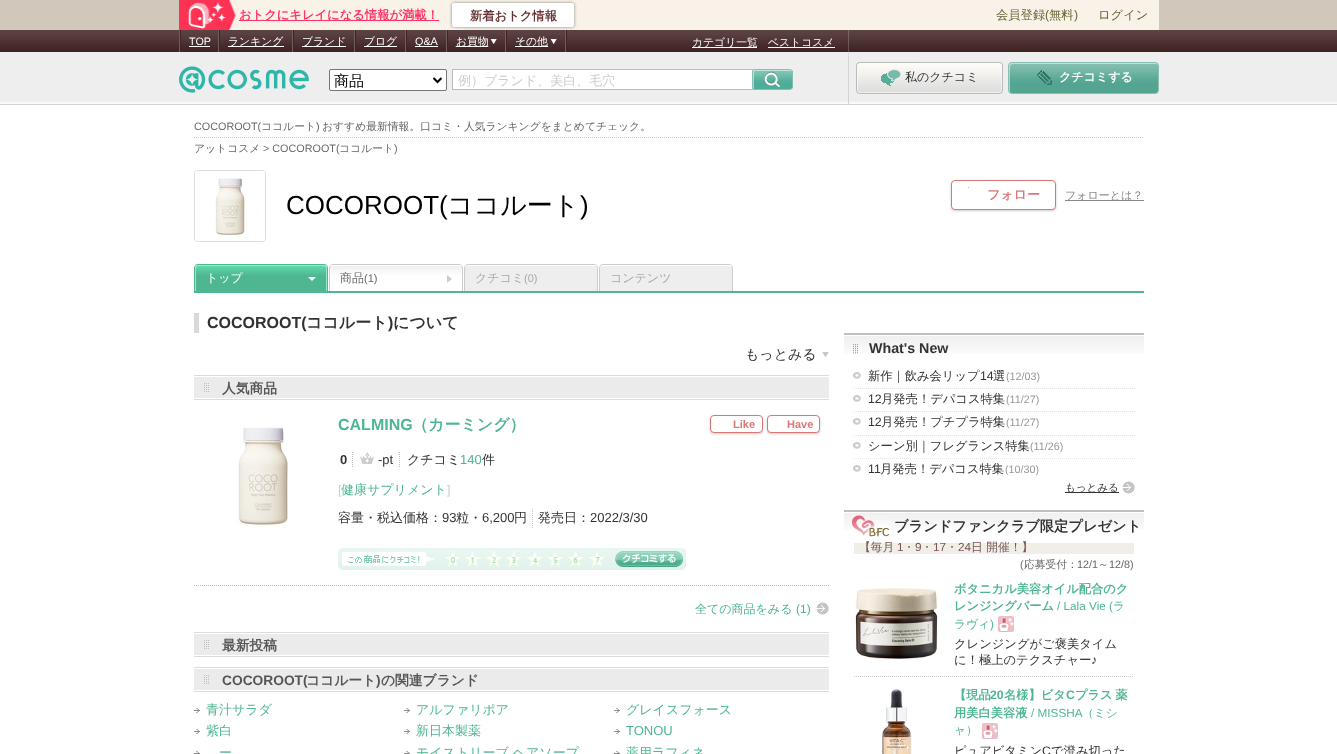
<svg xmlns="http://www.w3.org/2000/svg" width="1337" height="754">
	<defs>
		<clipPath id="clip1"><path d="M198 265H324C325.5 265 327 266.5 327 268V291H195V268C195 266.5 196.5 265 198 265Z" /></clipPath>
		<linearGradient id="g1" gradientUnits="userSpaceOnUse" x1="261" y1="266" x2="261" y2="291"><stop offset="0" stop-color="#60D8AA" /><stop offset="0.4" stop-color="#4EB691" /></linearGradient>
		<clipPath id="clip2"><path d="M333 265H459C460.5 265 462 266.5 462 268V291H330V268C330 266.5 331.5 265 333 265Z" /></clipPath>
		<linearGradient id="g2" gradientUnits="userSpaceOnUse" x1="396" y1="241" x2="396" y2="266"><stop offset="0" stop-color="#EFEFEF" /><stop offset="0.4" stop-color="#FFFFFF" /></linearGradient>
		<linearGradient id="g3" gradientUnits="userSpaceOnUse" x1="396" y1="266" x2="396" y2="291"><stop offset="0" stop-color="#EFEFEF" /><stop offset="0.4" stop-color="#FFFFFF" /></linearGradient>
	</defs>
	<rect width="100%" height="100%" fill="#FFFFFF" />
	<rect x="0" y="0" width="1337" height="30" fill="#D1C7BB" />
	<rect x="229" y="0" width="930" height="30" fill="#F8F2E9" />
	<image x="179" y="0" width="57" height="30" href="assets/img1.png" />
	<rect x="239" y="20" width="200" height="1" fill="#FF3366" />
	<text x="239" y="19" font-family="WenQuanYi Zen Hei" font-size="12.3" font-weight="700" fill="#FF3366">おトクにキレイになる情報が満載！</text>
	<image x="449" y="0" width="128" height="30" href="assets/img2.png" />
	<text x="470" y="20" font-family="WenQuanYi Zen Hei" font-size="12.3" font-weight="700" fill="#663333">新着おトク情報</text>
	<text x="996" y="19" font-family="WenQuanYi Zen Hei" font-size="12.3" font-weight="500" fill="#666633">会員登録</text>
	<text x="1045" y="19" font-family="Liberation Sans" font-size="12.3" fill="#666633">(</text>
	<text x="1049" y="19" font-family="WenQuanYi Zen Hei" font-size="12.3" font-weight="500" fill="#666633">無料</text>
	<text x="1074" y="19" font-family="Liberation Sans" font-size="12.3" fill="#666633">)</text>
	<text x="1098" y="19" font-family="WenQuanYi Zen Hei" font-size="12.3" font-weight="500" fill="#666633">ログイン</text>
	<image x="0" y="30" width="1337" height="75" href="assets/img3.png" />
	<image x="848" y="30" width="1" height="74" href="assets/img4.png" />
	<rect x="566" y="30" width="1" height="22" fill="#402323" />
	<rect x="179" y="30" width="1" height="22" fill="#725D5D" />
	<rect x="218" y="30" width="1" height="22" fill="#725D5D" />
	<rect x="180" y="30" width="1" height="22" fill="#402323" />
	<text x="189" y="45" font-family="Liberation Sans" font-size="10.8" fill="#FFFFFF">TOP</text>
	<rect x="189" y="46" width="21" height="1" fill="#FFFFFF" />
	<rect x="292" y="30" width="1" height="22" fill="#725D5D" />
	<rect x="219" y="30" width="1" height="22" fill="#402323" />
	<rect x="228" y="46" width="56" height="1" fill="#FFFFFF" />
	<text x="228" y="45" font-family="WenQuanYi Zen Hei" font-size="10.8" font-weight="500" fill="#FFFFFF">ランキング</text>
	<rect x="354" y="30" width="1" height="22" fill="#725D5D" />
	<rect x="293" y="30" width="1" height="22" fill="#402323" />
	<rect x="302" y="46" width="44" height="1" fill="#FFFFFF" />
	<text x="302" y="45" font-family="WenQuanYi Zen Hei" font-size="10.8" font-weight="500" fill="#FFFFFF">ブランド</text>
	<rect x="405" y="30" width="1" height="22" fill="#725D5D" />
	<rect x="355" y="30" width="1" height="22" fill="#402323" />
	<rect x="364" y="46" width="33" height="1" fill="#FFFFFF" />
	<text x="364" y="45" font-family="WenQuanYi Zen Hei" font-size="10.8" font-weight="500" fill="#FFFFFF">ブログ</text>
	<rect x="446" y="30" width="1" height="22" fill="#725D5D" />
	<rect x="406" y="30" width="1" height="22" fill="#402323" />
	<rect x="415" y="46" width="23" height="1" fill="#FFFFFF" />
	<text x="415" y="45" font-family="Liberation Sans" font-size="10.8" fill="#FFFFFF">Q&amp;A</text>
	<rect x="505" y="30" width="1" height="22" fill="#725D5D" />
	<rect x="447" y="30" width="1" height="22" fill="#402323" />
	<image x="455" y="39" width="42" height="8" href="assets/img5.png" />
	<text x="456" y="45" font-family="WenQuanYi Zen Hei" font-size="10.8" font-weight="500" fill="#FFFFFF">お買物</text>
	<rect x="565" y="30" width="1" height="22" fill="#725D5D" />
	<rect x="506" y="30" width="1" height="22" fill="#402323" />
	<rect x="515" y="46" width="33" height="1" fill="#FFFFFF" />
	<text x="515" y="45" font-family="WenQuanYi Zen Hei" font-size="10.8" font-weight="500" fill="#FFFFFF">その他</text>
	<image x="548" y="39" width="9" height="8" href="assets/img6.png" />
	<rect x="692" y="47" width="65" height="1" fill="#FFFFFF" />
	<text x="692" y="46" font-family="WenQuanYi Zen Hei" font-size="10.8" font-weight="500" fill="#FFFFFF">カテゴリ一覧</text>
	<rect x="768" y="47" width="67" height="1" fill="#FFFFFF" />
	<text x="768" y="46" font-family="WenQuanYi Zen Hei" font-size="10.8" font-weight="500" fill="#FFFFFF">ベストコスメ</text>
	<image x="179" y="66" width="130" height="27" href="assets/img7.png" />
	<rect x="329.5" y="69.5" width="117" height="21" rx="1.5" fill="#FFFFFF" stroke="#767676" />
	<path d="M433.5 78L437.5 82L441.5 78" fill="none" stroke="#000000" stroke-width="2" />
	<text x="334" y="86" font-family="WenQuanYi Zen Hei" font-size="15" font-weight="500" fill="#000000">商品</text>
	<rect x="452.5" y="69.5" width="300" height="20" fill="#FFFFFF" stroke="#BBBBBB" />
	<text x="458" y="85" font-family="WenQuanYi Zen Hei" font-size="13" font-weight="500" fill="#CCCCCC">例）ブランド、美白、毛穴</text>
	<image x="752" y="69" width="41" height="21" href="assets/img8.png" />
	<image x="856" y="62" width="147" height="32" href="assets/img9.png" />
	<image x="881" y="69" width="20" height="17" href="assets/img10.png" />
	<text x="905" y="81" font-family="WenQuanYi Zen Hei" font-size="12" font-weight="500" fill="#333333">私のクチコミ</text>
	<image x="1008" y="62" width="151" height="32" href="assets/img11.png" />
	<image x="1037" y="70" width="15" height="15" href="assets/img12.png" />
	<text x="1059" y="81" font-family="WenQuanYi Zen Hei" font-size="12" font-weight="700" fill="#FFFFFF">クチコミする</text>
	<path d="M194 137.5H1144" fill="none" stroke="#CCCCCC" stroke-dasharray="1 1" />
	<text x="194" y="130" font-family="Liberation Sans" font-size="10.8" fill="#666666">COCOROOT(</text>
	<text x="261" y="130" font-family="WenQuanYi Zen Hei" font-size="10.8" font-weight="500" fill="#666666">ココルート</text>
	<text x="316" y="130" font-family="Liberation Sans" font-size="10.8" fill="#666666">)</text>
	<g font-family="WenQuanYi Zen Hei" font-size="10.8" font-weight="500" fill="#666666">
		<text x="322" y="130">おすすめ最新情報。口コミ・人気ランキングをまとめてチェック。</text>
		<text x="194" y="152">アットコスメ</text>
	</g>
	<text x="263" y="152" font-family="Liberation Sans" font-size="10.8" fill="#666666">&gt; COCOROOT(</text>
	<text x="339" y="152" font-family="WenQuanYi Zen Hei" font-size="10.8" font-weight="500" fill="#666666">ココルート</text>
	<text x="394" y="152" font-family="Liberation Sans" font-size="10.8" fill="#666666">)</text>
	<rect x="194.5" y="170.5" width="71" height="71" rx="3.5" fill="none" stroke="#DDDDDD" />
	<image x="195" y="171" width="70" height="70" href="assets/img13.png" />
	<text x="286" y="214" font-family="Liberation Sans" font-size="26" fill="#000000">COCOROOT(</text>
	<text x="447" y="214" font-family="WenQuanYi Zen Hei" font-size="26" font-weight="500" fill="#000000">ココルート</text>
	<text x="580" y="214" font-family="Liberation Sans" font-size="26" fill="#000000">)</text>
	<rect x="951" y="181" width="105" height="30" rx="4" fill="#000000" fill-opacity="0.2" filter="blur(1px)" />
	<rect x="951.5" y="180.5" width="104" height="29" rx="3.5" fill="#FFFFFF" stroke="#D97777" />
	<rect x="968" y="187" width="1" height="1" fill="#E8ADAD" />
	<text x="987" y="199" font-family="WenQuanYi Zen Hei" font-size="13" font-weight="700" fill="#D97777">フォロー</text>
	<rect x="1065" y="200" width="79" height="1" fill="#888888" />
	<text x="1065" y="199" font-family="WenQuanYi Zen Hei" font-size="11" font-weight="500" fill="#888888">フォローとは？</text>
	<rect x="194" y="291" width="950" height="2" fill="#4EB691" />
	<path d="M198 264H324C326 264 328 266 328 268V291H194V268C194 266 196 264 198 264ZM198 265H324C326 265 327 266 327 268V291H195V268C195 266 196 265 198 265Z" fill="#4EB691" fill-rule="evenodd" />
	<g clip-path="url(#clip1)">
		<rect x="195" y="266" width="132" height="25" fill="url(#g1)" />
	</g>
	<path d="M198 265H324C326 265 327 266 327 268V291H195V268C195 266 196 265 198 265ZM198 266H324C325 266 326 267 326 268V291H196V268C196 267 197 266 198 266Z" fill="#98E7C9" fill-rule="evenodd" />
	<text x="206" y="282" font-family="WenQuanYi Zen Hei" font-size="12" font-weight="500" fill="#FFFFFF">トップ</text>
	<path d="M308 277H316L312 281Z" fill="#FFFFFF" />
	<path d="M333 264H459C461 264 463 266 463 268V291H329V268C329 266 331 264 333 264ZM333 265H459C461 265 462 266 462 268V291H330V268C330 266 331 265 333 265Z" fill="#CCCCCC" fill-rule="evenodd" />
	<g clip-path="url(#clip2)">
		<rect x="330" y="265" width="132" height="1" fill="url(#g2)" />
		<rect x="330" y="266" width="132" height="25" fill="url(#g3)" />
	</g>
	<rect x="460" y="265" width="1" height="1" fill="#FFFFFF" />
	<text x="340" y="282" font-family="WenQuanYi Zen Hei" font-size="12" font-weight="500" fill="#666666">商品</text>
	<text x="364" y="282" font-family="Liberation Sans" font-size="11" fill="#666666">(1)</text>
	<path d="M447 283V275L452 279Z" fill="#CCCCCC" />
	<path d="M468 264H594C596 264 598 266 598 268V291H464V268C464 266 466 264 468 264ZM468 265H594C596 265 597 266 597 268V291H465V268C465 266 466 265 468 265Z" fill="#CCCCCC" fill-rule="evenodd" />
	<path d="M468 265H594C595.5 265 597 266.5 597 268V291H465V268C465 266.5 466.5 265 468 265Z" fill="#EEEEEE" />
	<rect x="467" y="265" width="129" height="1" fill="#FFFFFF" />
	<text x="475" y="282" font-family="WenQuanYi Zen Hei" font-size="12" font-weight="500" fill="#A9A9A9">クチコミ</text>
	<text x="524" y="282" font-family="Liberation Sans" font-size="11" fill="#A9A9A9">(0)</text>
	<path d="M603 264H729C731 264 733 266 733 268V291H599V268C599 266 601 264 603 264ZM603 265H729C731 265 732 266 732 268V291H600V268C600 266 601 265 603 265Z" fill="#CCCCCC" fill-rule="evenodd" />
	<path d="M603 265H729C730.5 265 732 266.5 732 268V291H600V268C600 266.5 601.5 265 603 265Z" fill="#EEEEEE" />
	<rect x="602" y="265" width="129" height="1" fill="#FFFFFF" />
	<text x="610" y="282" font-family="WenQuanYi Zen Hei" font-size="12" font-weight="500" fill="#A9A9A9">コンテンツ</text>
	<rect x="194" y="313" width="5" height="20" fill="#D9D9D9" />
	<text x="207" y="328" font-family="Liberation Sans" font-size="16" font-weight="700" fill="#333333">COCOROOT(</text>
	<text x="306" y="328" font-family="WenQuanYi Zen Hei" font-size="16" font-weight="700" fill="#333333">ココルート</text>
	<text x="388" y="328" font-family="Liberation Sans" font-size="16" font-weight="700" fill="#333333">)</text>
	<text x="393" y="328" font-family="WenQuanYi Zen Hei" font-size="16" font-weight="700" fill="#333333">について</text>
	<text x="745" y="359" font-family="WenQuanYi Zen Hei" font-size="14" font-weight="500" fill="#333333">もっとみる</text>
	<image x="822" y="352" width="7" height="5" href="assets/img14.png" />
	<rect x="194" y="375" width="635" height="1" fill="#DBDBDB" />
	<rect x="194" y="399" width="635" height="1" fill="#DBDBDB" />
	<rect x="194" y="377" width="635" height="21" fill="#EBEBEB" />
	<image x="204" y="383" width="5" height="9" href="assets/img15.png" />
	<text x="222" y="393" font-family="WenQuanYi Zen Hei" font-size="13.75" font-weight="700" fill="#555555">人気商品</text>
	<path d="M194 585.5H829" fill="none" stroke="#BDB8AE" stroke-dasharray="1 1" />
	<text x="338" y="430" font-family="Liberation Sans" font-size="16" font-weight="700" fill="#4EB691">CALMING</text>
	<text x="412" y="430" font-family="WenQuanYi Zen Hei" font-size="16" font-weight="700" fill="#4EB691">（カーミング）</text>
	<text x="340" y="464" font-family="Liberation Sans" font-size="13" font-weight="700" fill="#333333">0</text>
	<image x="352" y="452" width="1" height="15" href="assets/img16.png" />
	<image x="360" y="452" width="14" height="12" href="assets/img17.png" />
	<text x="378" y="464" font-family="Liberation Sans" font-size="13" fill="#333333">-pt</text>
	<image x="399" y="452" width="1" height="15" href="assets/img16.png" />
	<text x="407" y="464" font-family="WenQuanYi Zen Hei" font-size="13" font-weight="500" fill="#333333">クチコミ</text>
	<text x="460" y="464" font-family="Liberation Sans" font-size="13" fill="#4EB691">140</text>
	<text x="482" y="464" font-family="WenQuanYi Zen Hei" font-size="13" font-weight="500" fill="#333333">件</text>
	<text x="338" y="494" font-family="Liberation Sans" font-size="12.3" fill="#CCCCCC">[</text>
	<text x="341" y="494" font-family="WenQuanYi Zen Hei" font-size="13" font-weight="500" fill="#4EB691">健康サプリメント</text>
	<text x="447" y="494" font-family="Liberation Sans" font-size="12.3" fill="#CCCCCC">]</text>
	<text x="338" y="522" font-family="WenQuanYi Zen Hei" font-size="13" font-weight="500" fill="#333333">容量・税込価格：</text>
	<text x="442" y="522" font-family="Liberation Sans" font-size="13" fill="#333333">93</text>
	<text x="456" y="522" font-family="WenQuanYi Zen Hei" font-size="13" font-weight="500" fill="#333333">粒・</text>
	<text x="482" y="522" font-family="Liberation Sans" font-size="13" fill="#333333">6,200</text>
	<text x="514" y="522" font-family="WenQuanYi Zen Hei" font-size="13" font-weight="500" fill="#333333">円</text>
	<path d="M532.5 509V528" fill="none" stroke="#CCCCCC" stroke-dasharray="1 1" />
	<text x="538" y="522" font-family="WenQuanYi Zen Hei" font-size="13" font-weight="500" fill="#333333">発売日：</text>
	<text x="590" y="522" font-family="Liberation Sans" font-size="13" fill="#333333">2022/3/30</text>
	<image x="338" y="548" width="348" height="22" href="assets/img18.png" />
	<image x="445" y="549" width="17" height="20" href="assets/img19.png" />
	<image x="465" y="550" width="17" height="19" href="assets/img20.png" />
	<image x="485" y="549" width="17" height="20" href="assets/img21.png" />
	<image x="505" y="549" width="17" height="20" href="assets/img22.png" />
	<image x="527" y="551" width="17" height="18" href="assets/img23.png" />
	<image x="547" y="549" width="16" height="20" href="assets/img24.png" />
	<image x="567" y="549" width="18" height="20" href="assets/img25.png" />
	<image x="588" y="549" width="17" height="20" href="assets/img26.png" />
	<image x="615" y="551" width="68" height="16" href="assets/img27.png" />
	<rect x="710" y="416" width="53" height="18" rx="4" fill="#000000" fill-opacity="0.2" filter="blur(1px)" />
	<rect x="710.5" y="415.5" width="52" height="17" rx="3.5" fill="#FFFFFF" stroke="#D97777" />
	<rect x="717" y="417" width="1" height="1" fill="#F7E4E4" />
	<text x="733" y="428" font-family="Liberation Sans" font-size="11" font-weight="700" fill="#D97777">Like</text>
	<rect x="767" y="416" width="53" height="18" rx="4" fill="#000000" fill-opacity="0.2" filter="blur(1px)" />
	<rect x="767.5" y="415.5" width="52" height="17" rx="3.5" fill="#FFFFFF" stroke="#D97777" />
	<rect x="773" y="417" width="1" height="1" fill="#F6DEDE" />
	<text x="787" y="428" font-family="Liberation Sans" font-size="11" font-weight="700" fill="#D97777">Have</text>
	<image x="235" y="427" width="55" height="100" href="assets/img28.png" />
	<text x="695" y="613" font-family="WenQuanYi Zen Hei" font-size="12" font-weight="500" fill="#4EB691">全ての商品をみる</text>
	<text x="796" y="613" font-family="Liberation Sans" font-size="12" fill="#4EB691">(1)</text>
	<image x="816" y="602" width="13" height="13" href="assets/img29.png" />
	<rect x="194" y="632" width="635" height="1" fill="#DBDBDB" />
	<rect x="194" y="656" width="635" height="1" fill="#DBDBDB" />
	<rect x="194" y="634" width="635" height="21" fill="#EBEBEB" />
	<image x="204" y="640" width="5" height="9" href="assets/img15.png" />
	<text x="222" y="650" font-family="WenQuanYi Zen Hei" font-size="13.75" font-weight="700" fill="#555555">最新投稿</text>
	<rect x="194" y="667" width="635" height="1" fill="#DBDBDB" />
	<rect x="194" y="691" width="635" height="1" fill="#DBDBDB" />
	<rect x="194" y="669" width="635" height="21" fill="#EBEBEB" />
	<image x="204" y="675" width="5" height="9" href="assets/img15.png" />
	<text x="222" y="685" font-family="Liberation Sans" font-size="13.75" font-weight="700" fill="#555555">COCOROOT(</text>
	<text x="306" y="685" font-family="WenQuanYi Zen Hei" font-size="13.75" font-weight="700" fill="#555555">ココルート</text>
	<text x="376" y="685" font-family="Liberation Sans" font-size="13.75" font-weight="700" fill="#555555">)</text>
	<text x="381" y="685" font-family="WenQuanYi Zen Hei" font-size="13.75" font-weight="700" fill="#555555">の関連ブランド</text>
	<image x="194" y="708" width="6" height="5" href="assets/img30.png" />
	<text x="206" y="714" font-family="WenQuanYi Zen Hei" font-size="13" font-weight="500" fill="#4EB691">青汁サラダ</text>
	<image x="404" y="708" width="6" height="5" href="assets/img31.png" />
	<text x="416" y="714" font-family="WenQuanYi Zen Hei" font-size="13" font-weight="500" fill="#4EB691">アルファリポア</text>
	<image x="614" y="708" width="6" height="5" href="assets/img30.png" />
	<text x="626" y="714" font-family="WenQuanYi Zen Hei" font-size="13" font-weight="500" fill="#4EB691">グレイスフォース</text>
	<image x="194" y="729" width="6" height="5" href="assets/img30.png" />
	<text x="206" y="735" font-family="WenQuanYi Zen Hei" font-size="13" font-weight="500" fill="#4EB691">紫白</text>
	<image x="404" y="729" width="6" height="5" href="assets/img31.png" />
	<text x="416" y="735" font-family="WenQuanYi Zen Hei" font-size="13" font-weight="500" fill="#4EB691">新日本製薬</text>
	<image x="614" y="729" width="6" height="5" href="assets/img30.png" />
	<text x="626" y="735" font-family="Liberation Sans" font-size="13" fill="#4EB691">TONOU</text>
	<image x="194" y="751" width="6" height="3" href="assets/img32.png" />
	<text x="219" y="757" font-family="WenQuanYi Zen Hei" font-size="13" font-weight="500" fill="#4EB691">ー</text>
	<image x="404" y="751" width="6" height="3" href="assets/img33.png" />
	<text x="416" y="757" font-family="WenQuanYi Zen Hei" font-size="13" font-weight="500" fill="#4EB691">モイストリーブ ヘアソープ</text>
	<image x="614" y="751" width="6" height="3" href="assets/img32.png" />
	<text x="626" y="757" font-family="WenQuanYi Zen Hei" font-size="13" font-weight="500" fill="#4EB691">薬用ラフィネ</text>
	<image x="844" y="336" width="300" height="18" href="assets/img34.png" />
	<rect x="844" y="333" width="300" height="2" fill="#BFBFBF" />
	<text x="869" y="353" font-family="Liberation Sans" font-size="14.25" font-weight="700" fill="#333333">What's New</text>
	<image x="853" y="372" width="8" height="7" href="assets/img35.png" />
	<text x="868" y="380" font-family="WenQuanYi Zen Hei" font-size="12.3" font-weight="500" fill="#333333">新作｜飲み会リップ</text>
	<text x="980" y="380" font-family="Liberation Sans" font-size="12.3" fill="#333333">14</text>
	<text x="993" y="380" font-family="WenQuanYi Zen Hei" font-size="12.3" font-weight="500" fill="#333333">選</text>
	<text x="1006" y="380" font-family="Liberation Sans" font-size="10.75" fill="#999999">(12/03)</text>
	<image x="854" y="388" width="281" height="1" href="assets/img36.png" />
	<image x="853" y="395" width="8" height="7" href="assets/img35.png" />
	<text x="868" y="403" font-family="Liberation Sans" font-size="12.3" fill="#333333">12</text>
	<text x="881" y="403" font-family="WenQuanYi Zen Hei" font-size="12.3" font-weight="500" fill="#333333">月発売！デパコス特集</text>
	<text x="1006" y="403" font-family="Liberation Sans" font-size="10.75" fill="#999999">(11/27)</text>
	<image x="854" y="411" width="281" height="1" href="assets/img36.png" />
	<image x="853" y="418" width="8" height="7" href="assets/img35.png" />
	<text x="868" y="426" font-family="Liberation Sans" font-size="12.3" fill="#333333">12</text>
	<text x="881" y="426" font-family="WenQuanYi Zen Hei" font-size="12.3" font-weight="500" fill="#333333">月発売！プチプラ特集</text>
	<text x="1006" y="426" font-family="Liberation Sans" font-size="10.75" fill="#999999">(11/27)</text>
	<image x="854" y="435" width="281" height="1" href="assets/img36.png" />
	<image x="853" y="442" width="8" height="7" href="assets/img35.png" />
	<text x="868" y="450" font-family="WenQuanYi Zen Hei" font-size="12.3" font-weight="500" fill="#333333">シーン別｜フレグランス特集</text>
	<text x="1030" y="450" font-family="Liberation Sans" font-size="10.75" fill="#999999">(11/26)</text>
	<image x="854" y="458" width="281" height="1" href="assets/img36.png" />
	<image x="853" y="465" width="8" height="7" href="assets/img35.png" />
	<text x="868" y="473" font-family="Liberation Sans" font-size="12.3" fill="#333333">11</text>
	<text x="880" y="473" font-family="WenQuanYi Zen Hei" font-size="12.3" font-weight="500" fill="#333333">月発売！デパコス特集</text>
	<text x="1005" y="473" font-family="Liberation Sans" font-size="10.75" fill="#999999">(10/30)</text>
	<rect x="1065" y="492" width="54" height="1" fill="#333333" />
	<text x="1065" y="491" font-family="WenQuanYi Zen Hei" font-size="10.5" font-weight="500" fill="#333333">もっとみる</text>
	<image x="1122" y="481" width="13" height="13" href="assets/img29.png" />
	<image x="844" y="513" width="300" height="17" href="assets/img37.png" />
	<rect x="844" y="510" width="300" height="2" fill="#BFBFBF" />
	<image x="852" y="515" width="37" height="22" href="assets/img38.png" />
	<text x="894" y="531" font-family="WenQuanYi Zen Hei" font-size="14.25" font-weight="700" fill="#333333">ブランドファンクラブ限定プレゼント</text>
	<rect x="854" y="543" width="280" height="11" fill="#F1EEE8" />
	<text x="859" y="551" font-family="WenQuanYi Zen Hei" font-size="11.75" font-weight="500" fill="#775555">【毎月</text>
	<text x="897" y="551" font-family="Liberation Sans" font-size="11.75" fill="#775555">1</text>
	<text x="903" y="551" font-family="WenQuanYi Zen Hei" font-size="11.75" font-weight="500" fill="#775555">・</text>
	<text x="915" y="551" font-family="Liberation Sans" font-size="11.75" fill="#775555">9</text>
	<text x="921" y="551" font-family="WenQuanYi Zen Hei" font-size="11.75" font-weight="500" fill="#775555">・</text>
	<text x="933" y="551" font-family="Liberation Sans" font-size="11.75" fill="#775555">17</text>
	<text x="946" y="551" font-family="WenQuanYi Zen Hei" font-size="11.75" font-weight="500" fill="#775555">・</text>
	<text x="958" y="551" font-family="Liberation Sans" font-size="11.75" fill="#775555">24</text>
	<text x="971" y="551" font-family="WenQuanYi Zen Hei" font-size="11.75" font-weight="500" fill="#775555">日 開催！】</text>
	<text x="1020" y="568" font-family="Liberation Sans" font-size="10.75" fill="#666666">(</text>
	<text x="1024" y="568" font-family="WenQuanYi Zen Hei" font-size="10.75" font-weight="500" fill="#666666">応募受付：</text>
	<text x="1077" y="568" font-family="Liberation Sans" font-size="10.75" fill="#666666">12/1</text>
	<text x="1098" y="568" font-family="WenQuanYi Zen Hei" font-size="10.75" font-weight="500" fill="#666666">～</text>
	<text x="1109" y="568" font-family="Liberation Sans" font-size="10.75" fill="#666666">12/8)</text>
	<path d="M854 676.5H1134" fill="none" stroke="#CCCCCC" stroke-dasharray="1 1" />
	<image x="854" y="587" width="84" height="72" href="assets/img39.png" />
	<g font-family="WenQuanYi Zen Hei" font-size="12.25" font-weight="700" fill="#4EB691">
		<text x="954" y="593">ボタニカル美容オイル配合のク</text>
		<text x="954" y="610">レンジングバーム</text>
	</g>
	<text x="1057" y="610" font-family="Liberation Sans" font-size="11.75" fill="#4EB691">/ Lala Vie (</text>
	<g font-family="WenQuanYi Zen Hei" font-size="11.75" font-weight="500" fill="#4EB691">
		<text x="1113" y="610">ラ</text>
		<text x="954" y="628">ラヴィ</text>
	</g>
	<text x="990" y="628" font-family="Liberation Sans" font-size="11.75" fill="#4EB691">)</text>
	<image x="998" y="616" width="16" height="16" href="assets/img40.png" />
	<g font-family="WenQuanYi Zen Hei" font-size="12.3" font-weight="500" fill="#333333">
		<text x="954" y="648">クレンジングがご褒美タイム</text>
		<text x="954" y="664">に！極上のテクスチャー</text>
	</g>
	<text x="1091" y="664" font-family="Liberation Sans" font-size="12.3" fill="#333333">♪</text>
	<image x="877" y="689" width="35" height="65" href="assets/img41.png" />
	<text x="954" y="699" font-family="WenQuanYi Zen Hei" font-size="12.25" font-weight="700" fill="#4EB691">【現品</text>
	<text x="990" y="699" font-family="Liberation Sans" font-size="12.25" font-weight="700" fill="#4EB691">20</text>
	<text x="1004" y="699" font-family="WenQuanYi Zen Hei" font-size="12.25" font-weight="700" fill="#4EB691">名様】ビタ</text>
	<text x="1066" y="699" font-family="Liberation Sans" font-size="12.25" font-weight="700" fill="#4EB691">C</text>
	<g font-family="WenQuanYi Zen Hei" font-size="12.25" font-weight="700" fill="#4EB691">
		<text x="1075" y="699" word-spacing="-1">プラス 薬</text>
		<text x="954" y="717">用美白美容液</text>
	</g>
	<text x="1031" y="717" font-family="Liberation Sans" font-size="11.75" fill="#4EB691">/ MISSHA</text>
	<g font-family="WenQuanYi Zen Hei" font-size="11.75" font-weight="500" fill="#4EB691">
		<text x="1082" y="717">（ミシ</text>
		<text x="954" y="734">ャ）</text>
	</g>
	<image x="982" y="723" width="16" height="16" href="assets/img40.png" />
	<text x="954" y="755" font-family="WenQuanYi Zen Hei" font-size="12.3" font-weight="500" fill="#333333">ピュアビタミン</text>
	<text x="1042" y="755" font-family="Liberation Sans" font-size="12.3" fill="#333333">C</text>
	<text x="1051" y="755" font-family="WenQuanYi Zen Hei" font-size="12.3" font-weight="500" fill="#333333">で澄み切った</text>
</svg>
